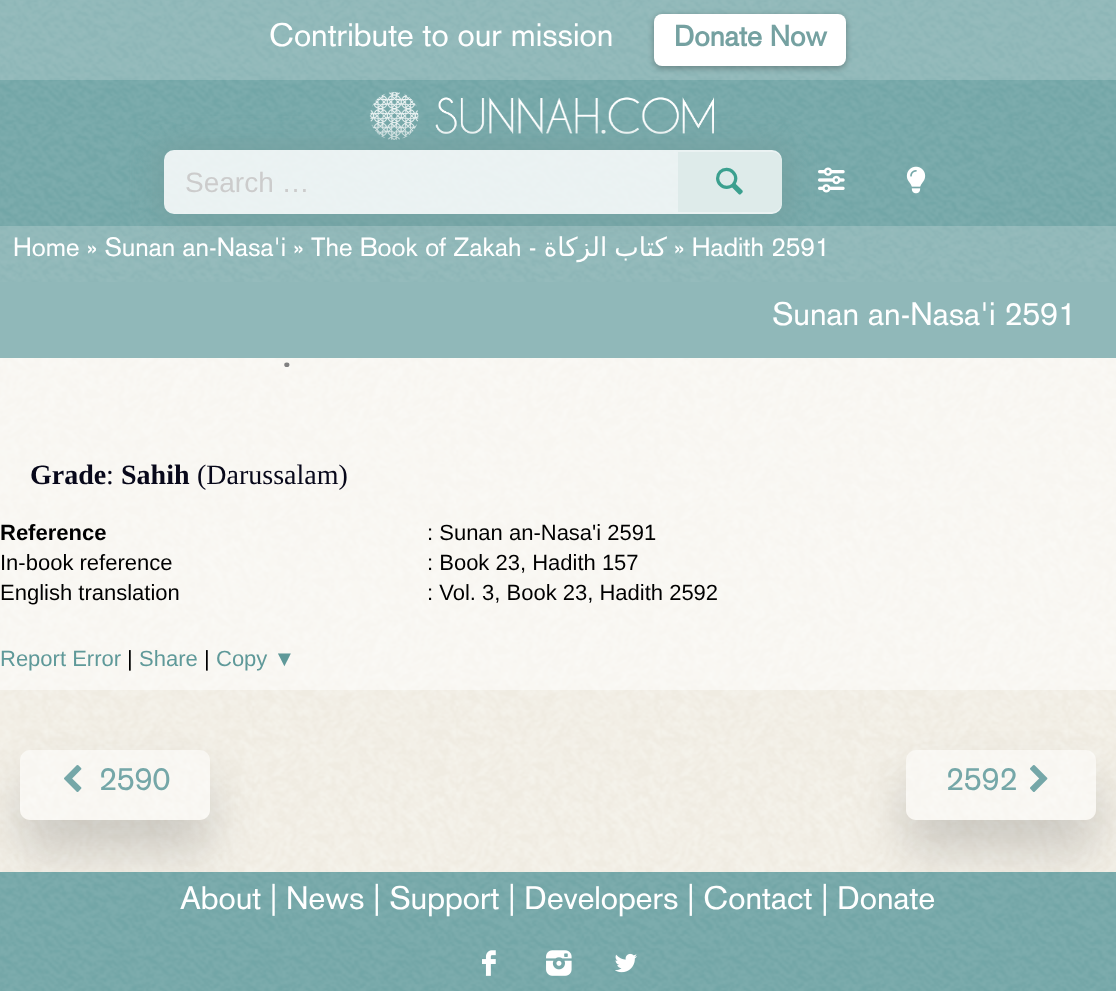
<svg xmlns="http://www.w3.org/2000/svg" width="1116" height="991">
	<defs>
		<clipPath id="clip1"><path d="M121 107H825V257H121ZM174 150H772C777.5 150 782 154.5 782 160V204C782 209.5 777.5 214 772 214H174C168.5 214 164 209.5 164 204V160C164 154.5 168.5 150 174 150Z" clip-rule="evenodd" /></clipPath>
		<clipPath id="clip2"><path d="M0 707H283V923H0ZM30 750H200C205.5 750 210 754.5 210 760V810C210 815.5 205.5 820 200 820H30C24.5 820 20 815.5 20 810V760C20 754.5 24.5 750 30 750Z" clip-rule="evenodd" /></clipPath>
		<clipPath id="clip3"><path d="M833 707H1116V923H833ZM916 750H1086C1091.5 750 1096 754.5 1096 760V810C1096 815.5 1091.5 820 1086 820H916C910.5 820 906 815.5 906 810V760C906 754.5 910.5 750 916 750Z" clip-rule="evenodd" /></clipPath>
	</defs>
	<rect width="100%" height="100%" fill="#FFFFFF" />
	<image x="0" y="358" width="1116" height="514" href="assets/img1.png" />
	<image x="0" y="0" width="1116" height="282" href="assets/img2.png" />
	<rect x="0" y="0" width="1116" height="80" fill="#FBFAF8" fill-opacity="0.2" />
	<text x="269" y="46" font-family="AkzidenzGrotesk" font-size="32" fill="#FFFFFF">Contribute to our mission</text>
	<rect x="654" y="16" width="192" height="52" rx="8" fill="#000000" fill-opacity="0.3" filter="blur(3px)" />
	<rect x="654" y="14" width="192" height="52" rx="8" fill="#FFFFFF" />
	<text x="674" y="46" font-family="AkzidenzGrotesk" font-size="28.75" font-weight="700" fill="#75A1A1">Donate Now</text>
	<image x="369" y="92" width="345" height="48" href="assets/img3.png" />
	<image x="818" y="167" width="27" height="26" href="assets/img4.png" />
	<g clip-path="url(#clip1)">
		<rect x="158" y="144" width="630" height="76" rx="16" fill="#75A1A1" filter="blur(12px)" />
	</g>
	<rect x="164" y="150" width="618" height="64" rx="10" fill="#FFFFFF" fill-opacity="0.85" />
	<text x="185" y="192" font-family="Liberation Sans" font-size="28" fill="#CCCCCC">Search …</text>
	<path d="M678 152H772C777.5 152 782 156.5 782 162V202C782 207.5 777.5 212 772 212H678Z" fill="#DEEBEA" />
	<text x="716" y="193" font-family="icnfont" font-size="34" fill="#3BA08F">l</text>
	<image x="906" y="166" width="20" height="28" href="assets/img5.png" />
	<rect x="0" y="226" width="1116" height="56" fill="#FBFAF8" fill-opacity="0.2" />
	<text x="13" y="256" font-family="AkzidenzGrotesk" font-size="26" fill="#FFFFFF">Home » Sunan an-Nasa'i » The Book of Zakah -</text>
	<text x="667" y="256" word-spacing="-1" font-family="DejaVu Sans" font-size="26" direction="rtl" fill="#FFFFFF">كتاب الزكاة</text>
	<text x="674" y="256" font-family="AkzidenzGrotesk" font-size="26" fill="#FFFFFF">» Hadith 2591</text>
	<rect x="0" y="358" width="1116" height="332" fill="#FFFFFF" fill-opacity="0.5" />
	<rect x="0" y="282" width="1116" height="76" fill="#90B8B9" />
	<text x="772" y="325" font-family="AkzidenzGrotesk" font-size="32" fill="#FFFFFF">Sunan an-Nasa'i 2591</text>
	<text x="292" y="368" font-family="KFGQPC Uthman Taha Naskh" font-size="50" direction="rtl" fill="#808080"> .</text>
	<text x="30" y="484" font-family="Liberation Serif" font-size="28" font-weight="700" fill="#08081A">Grade</text>
	<text x="106" y="484" font-family="Liberation Serif" font-size="28" fill="#08081A">:</text>
	<text x="121" y="484" font-family="Liberation Serif" font-size="28" font-weight="700" fill="#08081A">Sahih</text>
	<text x="197" y="484" font-family="Liberation Serif" font-size="28" fill="#08081A">(Darussalam)</text>
	<text x="0" y="540" font-family="Liberation Sans" font-size="22" font-weight="700" fill="#000000">Reference</text>
	<g font-family="Liberation Sans" font-size="22" fill="#000000">
		<text x="427" y="540">: Sunan an-Nasa'i 2591</text>
		<text x="0" y="570">In-book reference</text>
		<text x="427" y="570">: Book 23, Hadith 157</text>
		<text x="0" y="600">English translation</text>
		<text x="427" y="600">: Vol. 3, Book 23, Hadith 2592</text>
	</g>
	<text x="0" y="666" font-family="Liberation Sans" font-size="22" fill="#5F9999">Report Error</text>
	<text x="127" y="666" font-family="Liberation Sans" font-size="22" fill="#000000">|</text>
	<text x="139" y="666" font-family="Liberation Sans" font-size="22" fill="#5F9999">Share</text>
	<text x="204" y="666" font-family="Liberation Sans" font-size="22" fill="#000000">|</text>
	<text x="216" y="666" font-family="Liberation Sans" font-size="22" fill="#5F9999">Copy ▼</text>
	<g clip-path="url(#clip2)">
		<rect x="20" y="780" width="190" height="70" rx="10" fill="#000000" fill-opacity="0.16" filter="blur(24px)" />
	</g>
	<rect x="20" y="750" width="190" height="70" rx="10" fill="#FFFFFF" fill-opacity="0.5" />
	<text x="64" y="790" font-family="icnfont" font-size="30" fill="#75A7A8">&lt;</text>
	<text x="99" y="790" font-family="AkzidenzGrotesk" font-size="32" fill="#75A7A8">2590</text>
	<g clip-path="url(#clip3)">
		<rect x="906" y="780" width="190" height="70" rx="10" fill="#000000" fill-opacity="0.16" filter="blur(24px)" />
	</g>
	<rect x="906" y="750" width="190" height="70" rx="10" fill="#FFFFFF" fill-opacity="0.5" />
	<text x="946" y="790" font-family="AkzidenzGrotesk" font-size="32" fill="#75A7A8">2592</text>
	<text x="1030" y="790" font-family="icnfont" font-size="30" fill="#75A7A8">&gt;</text>
	<image x="0" y="872" width="1116" height="119" href="assets/img6.png" />
	<text x="180" y="909" font-family="AkzidenzGrotesk" font-size="32" fill="#FFFFFF">About | News | Support | Developers | Contact | Donate</text>
	<image x="482" y="950" width="14" height="26" href="assets/img7.png" />
	<image x="546" y="950" width="26" height="26" href="assets/img8.png" />
	<image x="615" y="953" width="22" height="20" href="assets/img9.png" />
</svg>
